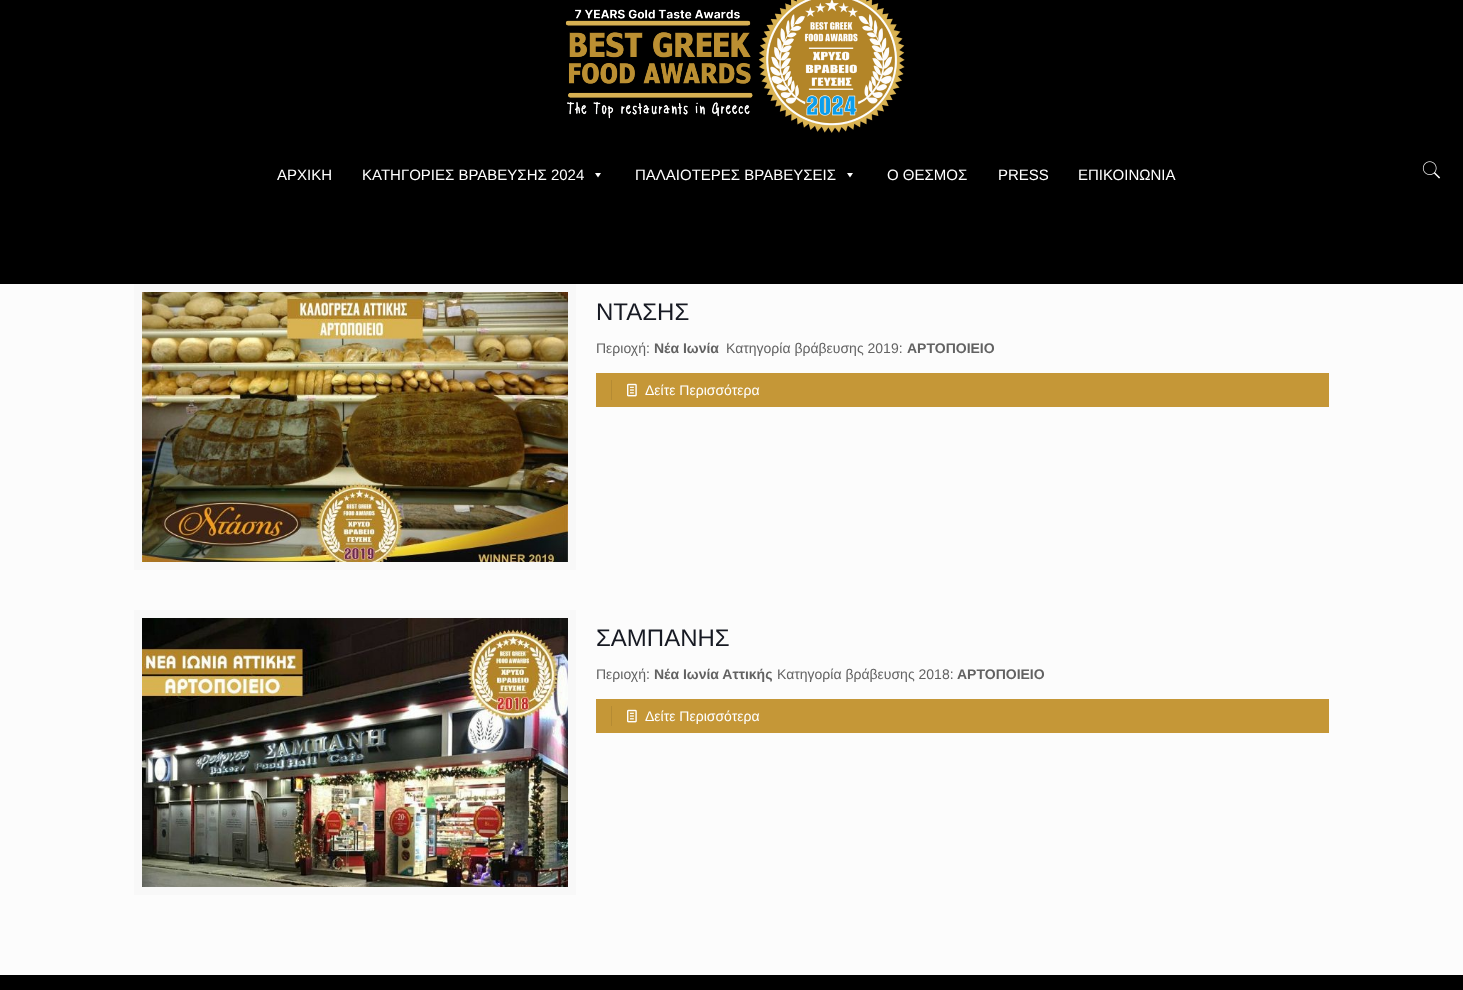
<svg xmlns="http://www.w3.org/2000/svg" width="1463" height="990">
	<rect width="100%" height="100%" fill="#FCFCFC" />
	<rect x="0" y="0" width="1463" height="284" fill="#000000" />
	<image x="565" y="0" width="340" height="133" href="assets/img1.png" />
	<g font-family="Liberation Sans" font-size="15" fill="#FFFFFF">
		<text x="277" y="180">ΑΡΧΙΚΗ</text>
		<text x="362" y="180">ΚΑΤΗΓΟΡΙΕΣ ΒΡΑΒΕΥΣΗΣ 2024</text>
	</g>
	<path d="M601 173L598 177.5L595 173Z" fill="#FFFFFF" />
	<text x="635" y="180" font-family="Liberation Sans" font-size="15" fill="#FFFFFF">ΠΑΛΑΙΟΤΕΡΕΣ ΒΡΑΒΕΥΣΕΙΣ</text>
	<path d="M853 173L850 177.5L847 173Z" fill="#FFFFFF" />
	<g font-family="Liberation Sans" font-size="15" fill="#FFFFFF">
		<text x="887" y="180">Ο ΘΕΣΜΟΣ</text>
		<text x="998" y="180">PRESS</text>
		<text x="1078" y="180">ΕΠΙΚΟΙΝΩΝΙΑ</text>
	</g>
	<image x="1422" y="161" width="19" height="18" href="assets/img2.png" />
	<rect x="138" y="288" width="434" height="278" fill="none" stroke="#F8F8F8" stroke-width="8" />
	<image x="142" y="292" width="426" height="270" href="assets/img3.png" />
	<text x="596" y="320" font-family="Liberation Sans" font-size="24" fill="#161922">ΝΤΑΣΗΣ</text>
	<text x="596" y="353" font-family="Liberation Sans" font-size="14" fill="#626262">Περιοχή:</text>
	<text x="654" y="353" font-family="Liberation Sans" font-size="14" font-weight="700" fill="#626262">Νέα Ιωνία</text>
	<text x="726" y="353" font-family="Liberation Sans" font-size="14" fill="#626262">Κατηγορία βράβευσης 2019:</text>
	<text x="907" y="353" font-family="Liberation Sans" font-size="14" font-weight="700" fill="#626262">ΑΡΤΟΠΟΙΕΙΟ</text>
	<rect x="596" y="373" width="733" height="34" fill="#C59737" />
	<rect x="611" y="380" width="1" height="20" fill="#B58B33" />
	<image x="627" y="383" width="10" height="14" href="assets/img4.png" />
	<text x="645" y="395" font-family="Liberation Sans" font-size="14" fill="#FFFFFF">Δείτε Περισσότερα</text>
	<rect x="138" y="614" width="434" height="277" fill="none" stroke="#F8F8F8" stroke-width="8" />
	<image x="142" y="618" width="426" height="269" href="assets/img5.png" />
	<text x="596" y="646" font-family="Liberation Sans" font-size="24" fill="#161922">ΣΑΜΠΑΝΗΣ</text>
	<text x="596" y="679" font-family="Liberation Sans" font-size="14" fill="#626262">Περιοχή:</text>
	<text x="654" y="679" font-family="Liberation Sans" font-size="14" font-weight="700" fill="#626262">Νέα Ιωνία Αττικής</text>
	<text x="777" y="679" font-family="Liberation Sans" font-size="14" fill="#626262">Κατηγορία βράβευσης 2018:</text>
	<text x="957" y="679" font-family="Liberation Sans" font-size="14" font-weight="700" fill="#626262">ΑΡΤΟΠΟΙΕΙΟ</text>
	<rect x="596" y="699" width="733" height="34" fill="#C59737" />
	<rect x="611" y="706" width="1" height="20" fill="#B58B33" />
	<image x="627" y="709" width="10" height="14" href="assets/img4.png" />
	<text x="645" y="721" font-family="Liberation Sans" font-size="14" fill="#FFFFFF">Δείτε Περισσότερα</text>
	<rect x="0" y="975" width="1463" height="15" fill="#000000" />
</svg>
